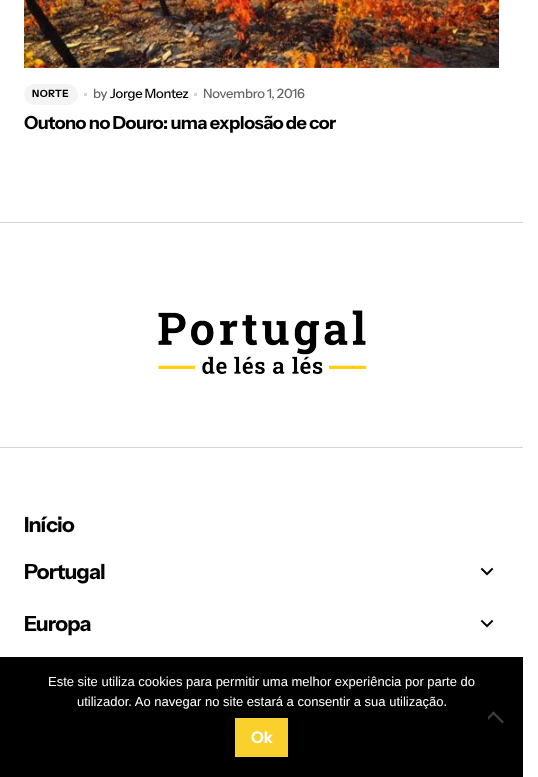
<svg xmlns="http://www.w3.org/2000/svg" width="538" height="777">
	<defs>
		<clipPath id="clip1"><rect x="488" y="707" width="20" height="20" /></clipPath>
	</defs>
	<rect width="100%" height="100%" fill="#FFFFFF" />
	<image x="24" y="0" width="475" height="68" href="assets/img1.png" />
	<rect x="24" y="84" width="54" height="21" rx="10.5" fill="#F4F4F4" />
	<text x="32" y="97" font-family="Instrument Sans" font-size="10" font-weight="700" letter-spacing="0.5" fill="#000000">NORTE</text>
	<rect x="84" y="93" width="3" height="3" fill="#D4D4D4" />
	<text x="93" y="98" font-family="Instrument Sans" font-size="13" font-weight="500" letter-spacing="-0.25" fill="#666666">by</text>
	<text x="110" y="98" font-family="Instrument Sans" font-size="13" font-weight="500" letter-spacing="-0.25" fill="#000000">Jorge Montez</text>
	<rect x="194" y="93" width="3" height="3" fill="#D4D4D4" />
	<text x="203" y="98" font-family="Instrument Sans" font-size="13" font-weight="500" letter-spacing="-0.25" fill="#666666">Novembro 1, 2016</text>
	<text x="24" y="129" font-family="Instrument Sans" font-size="18" font-weight="700" letter-spacing="-0.55" fill="#000000">Outono no Douro: uma explosão de cor</text>
	<rect x="0" y="222" width="523" height="1" fill="#D4D4D4" />
	<image x="158" y="310" width="209" height="65" href="assets/img2.png" />
	<rect x="0" y="447" width="523" height="1" fill="#D4D4D4" />
	<g font-family="Instrument Sans" font-size="21" font-weight="700" letter-spacing="-0.75" fill="#000000">
		<text x="24" y="532">Início</text>
		<text x="24" y="579">Portugal</text>
	</g>
	<image x="480" y="567" width="14" height="9" href="assets/img3.png" />
	<text x="24" y="631" font-family="Instrument Sans" font-size="21" font-weight="700" letter-spacing="-0.75" fill="#000000">Europa</text>
	<image x="480" y="619" width="14" height="9" href="assets/img3.png" />
	<rect x="0" y="657" width="523" height="120" fill="#000000" />
	<g font-family="Liberation Sans" font-size="13" fill="#FFFFFF">
		<text x="48" y="686">Este site utiliza cookies para permitir uma melhor experiência por parte do</text>
		<text x="77" y="706">utilizador. Ao navegar no site estará a consentir a sua utilização.</text>
	</g>
	<g clip-path="url(#clip1)">
		<path d="M493.5 711.5L495 713L484.5 723.5L483 722Z" fill="#404040" />
	</g>
	<path d="M492 713L493.5 711.5L504 722L502.5 723.5Z" fill="#404040" />
	<rect x="235" y="718" width="53" height="39" fill="#FAD02C" />
	<text x="251" y="743" font-family="Instrument Sans" font-size="16" font-weight="700" fill="#FFFFFF">Ok</text>
</svg>
